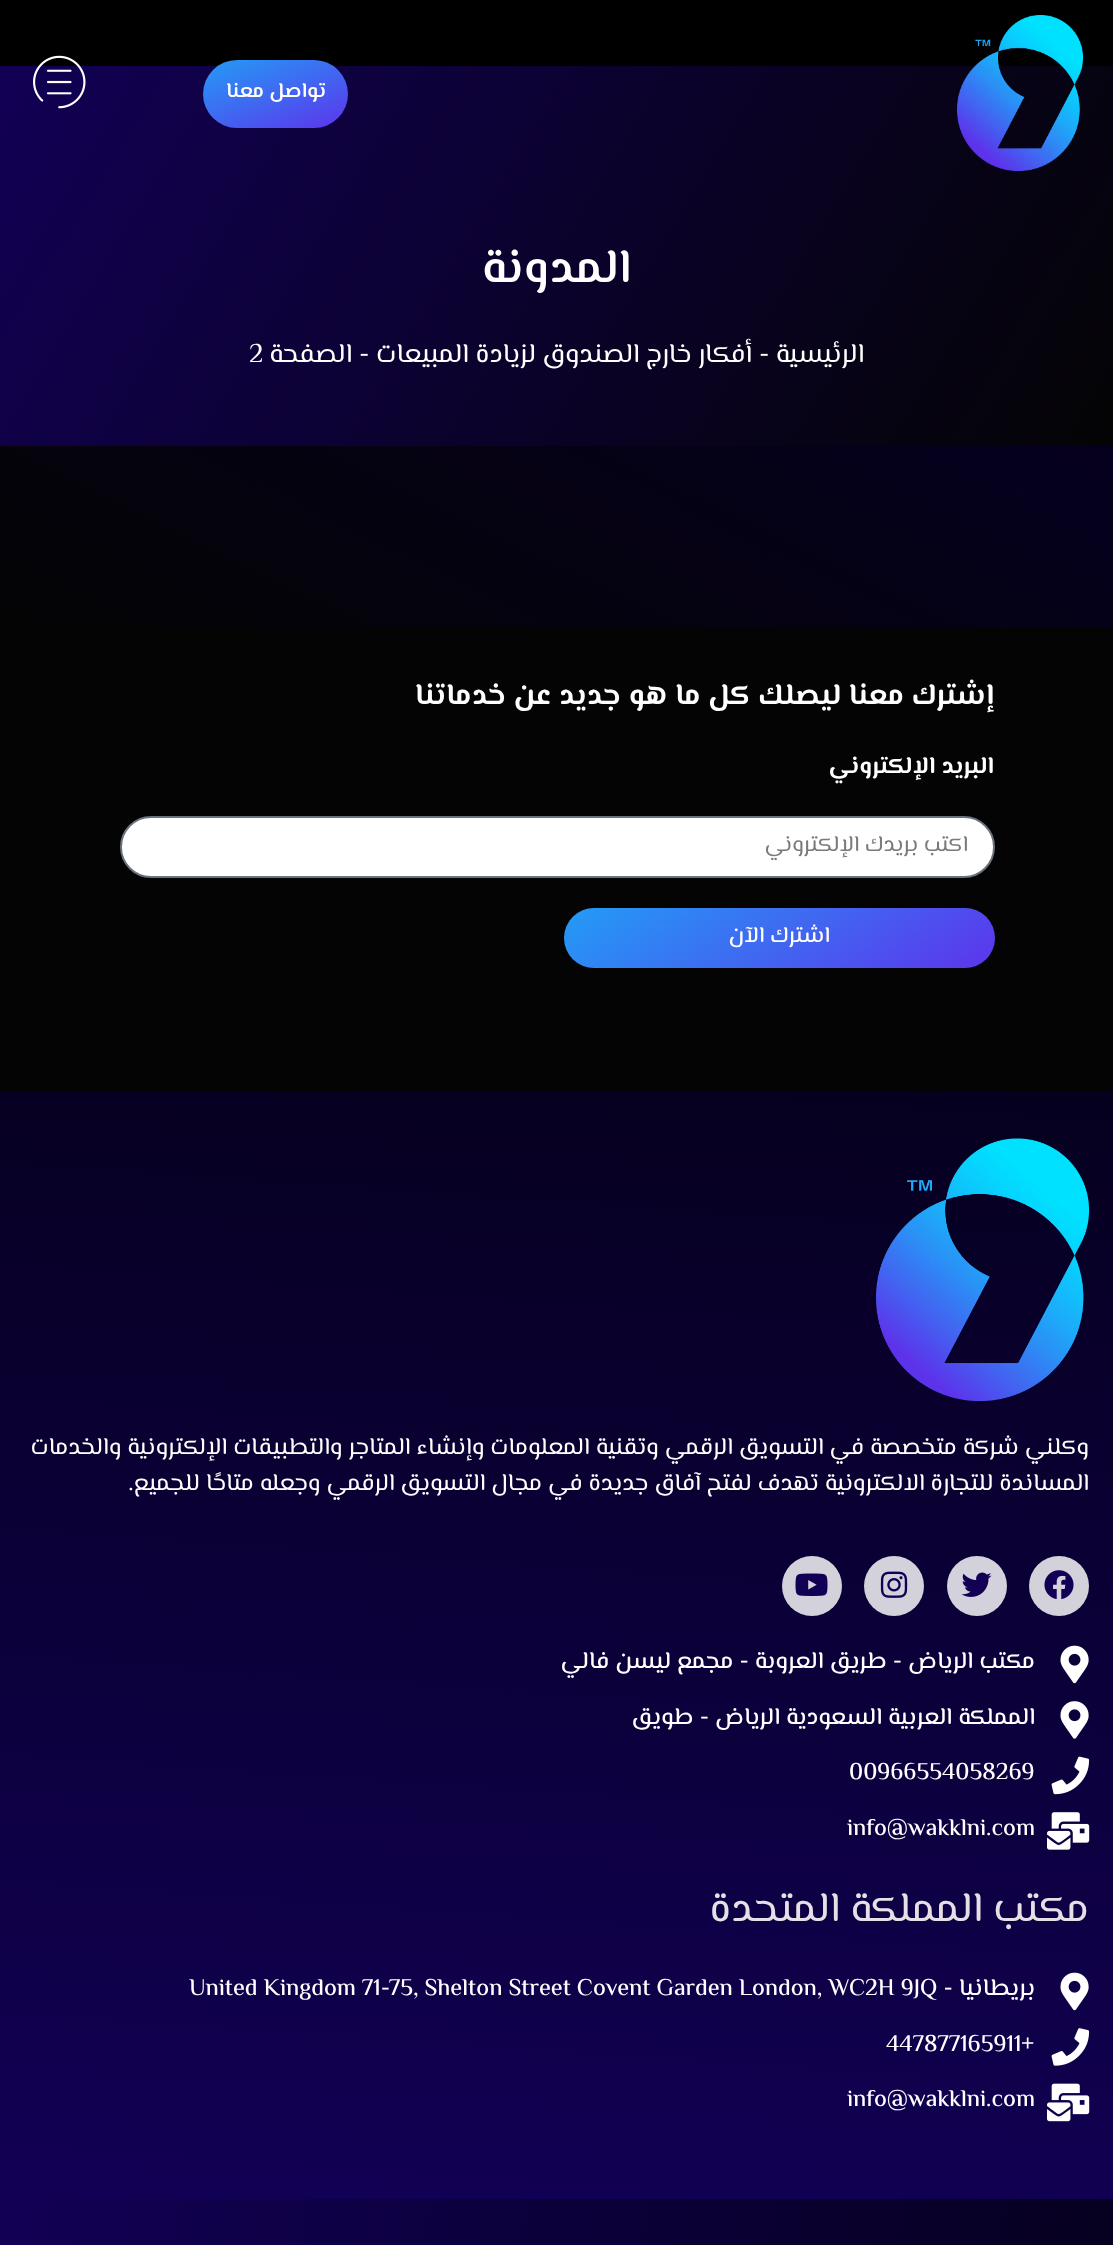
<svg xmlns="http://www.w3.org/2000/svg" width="1113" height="2245">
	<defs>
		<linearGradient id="g1" gradientUnits="userSpaceOnUse" x1="64" y1="-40" x2="1049" y2="552"><stop offset="0" stop-color="#120055" /><stop offset="1" stop-color="#040404" /></linearGradient>
		<linearGradient id="g2" gradientUnits="userSpaceOnUse" x1="253" y1="39" x2="297" y2="148"><stop offset="0" stop-color="#239CF6" /><stop offset="1" stop-color="#5C35EC" /></linearGradient>
		<linearGradient id="g3" gradientUnits="userSpaceOnUse" x1="413" y1="833" x2="700" y2="244"><stop offset="0" stop-color="#040404" /><stop offset="1" stop-color="#06001F" /></linearGradient>
		<linearGradient id="g4" gradientUnits="userSpaceOnUse" x1="698" y1="817" x2="860" y2="1058"><stop offset="0" stop-color="#239CF6" /><stop offset="1" stop-color="#5C35EC" /></linearGradient>
		<linearGradient id="g5" gradientUnits="userSpaceOnUse" x1="515" y1="2235" x2="598" y2="1054"><stop offset="0" stop-color="#120055" /><stop offset="1" stop-color="#06001F" /></linearGradient>
		<linearGradient id="g6" gradientUnits="userSpaceOnUse" x1="-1.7" y1="2209" x2="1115" y2="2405"><stop offset="0" stop-color="#120055" /><stop offset="1" stop-color="#06001F" /></linearGradient>
	</defs>
	<rect width="100%" height="100%" fill="#000000" />
	<rect x="0" y="66" width="1113" height="380" fill="url(#g1)" />
	<image x="957" y="15" width="126" height="156" href="assets/img1.png" />
	<rect x="203" y="60" width="145" height="68" rx="34" fill="url(#g2)" />
	<text x="326" y="97" font-family="El Messiri" font-size="21" font-weight="600" direction="rtl" fill="#FFFFFF">تواصل معنا</text>
	<image x="33" y="55" width="53" height="54" href="assets/img2.png" />
	<text x="631" y="282" font-family="El Messiri" font-size="48" font-weight="600" direction="rtl" fill="#FFFFFF">المدونة</text>
	<text x="864" y="362" font-family="El Messiri" font-size="27" direction="rtl" fill="#FFFFFF">الرئيسية</text>
	<text x="759" y="362" font-family="El Messiri" font-size="27" fill="#FFFFFF">-</text>
	<text x="752" y="362" font-family="El Messiri" font-size="27" direction="rtl" fill="#FFFFFF">أفكار خارج الصندوق لزيادة المبيعات</text>
	<text x="359" y="362" font-family="El Messiri" font-size="27" fill="#FFFFFF">-</text>
	<text x="352" y="362" font-family="El Messiri" font-size="27" direction="rtl" fill="#FFFFFF">الصفحة</text>
	<text x="249" y="362" font-family="El Messiri" font-size="27" fill="#FFFFFF">2</text>
	<rect x="0" y="446" width="1113" height="181" fill="url(#g3)" />
	<rect x="0" y="627" width="1113" height="464" fill="#040404" />
	<text x="994" y="704" font-family="El Messiri" font-size="30" font-weight="700" direction="rtl" fill="#FFFFFF">إشترك معنا ليصلك كل ما هو جديد عن خدماتنا</text>
	<text x="994" y="773" font-family="El Messiri" font-size="24" font-weight="700" direction="rtl" fill="#FFFFFF">البريد الإلكتروني</text>
	<rect x="121" y="817" width="873" height="60" rx="30" fill="#FFFFFF" stroke="#69727D" stroke-width="2" />
	<text x="968" y="851" font-family="El Messiri" font-size="22.5" direction="rtl" fill="#797A7C">اكتب بريدك الإلكتروني</text>
	<rect x="564" y="908" width="431" height="60" rx="30" fill="url(#g4)" />
	<text x="830" y="942" font-family="El Messiri" font-size="22.5" font-weight="500" direction="rtl" fill="#FFFFFF">اشترك الآن</text>
	<rect x="0" y="1091" width="1113" height="1108" fill="url(#g5)" />
	<image x="876" y="1138" width="213" height="263" href="assets/img3.png" />
	<g font-family="El Messiri" font-size="24" direction="rtl" fill="#FFFFFF">
		<text x="1089" y="1454">وكلني شركة متخصصة في التسويق الرقمي وتقنية المعلومات وإنشاء المتاجر والتطبيقات الإلكترونية والخدمات</text>
		<text x="1089" y="1490">المساندة للتجارة الالكترونية تهدف لفتح آفاق جديدة في مجال التسويق الرقمي وجعله متاحًا للجميع.</text>
	</g>
	<circle cx="1059" cy="1586" r="30" fill="#FFFFFF" fill-opacity="0.82" />
	<image x="1044" y="1570" width="30" height="30" href="assets/img4.png" />
	<circle cx="977" cy="1586" r="30" fill="#D3D1DB" />
	<image x="961" y="1572" width="31" height="25" href="assets/img5.png" />
	<circle cx="894" cy="1586" r="30" fill="#FFFFFF" fill-opacity="0.82" />
	<image x="880" y="1571" width="28" height="27" href="assets/img6.png" />
	<circle cx="812" cy="1586" r="30" fill="#FFFFFF" fill-opacity="0.82" />
	<image x="795" y="1573" width="33" height="23" href="assets/img7.png" />
	<image x="1060" y="1645" width="29" height="39" href="assets/img8.png" />
	<text x="1035" y="1668" font-family="El Messiri" font-size="24" font-weight="500" direction="rtl" fill="#FFFFFF">مكتب الرياض - طريق العروبة - مجمع ليسن فالي</text>
	<image x="1060" y="1701" width="29" height="38" href="assets/img9.png" />
	<text x="1035" y="1724" font-family="El Messiri" font-size="24" font-weight="500" direction="rtl" fill="#FFFFFF">المملكة العربية السعودية الرياض - طويق</text>
	<image x="1051" y="1756" width="39" height="39" href="assets/img10.png" />
	<text x="849" y="1779" font-family="El Messiri" font-size="24" font-weight="500" fill="#FFFFFF">00966554058269</text>
	<image x="1047" y="1812" width="43" height="38" href="assets/img11.png" />
	<text x="847" y="1835" font-family="El Messiri" font-size="24" font-weight="500" fill="#FFFFFF">info@wakklni.com</text>
	<text x="1089" y="1921" font-family="El Messiri" font-size="42" direction="rtl" fill="#E7DFE6">مكتب المملكة المتحدة</text>
	<image x="1060" y="1972" width="29" height="39" href="assets/img12.png" />
	<text x="1035" y="1995" font-family="El Messiri" font-size="24" font-weight="500" direction="rtl" fill="#FFFFFF">بريطانيا -</text>
	<text x="189" y="1995" font-family="El Messiri" font-size="24" font-weight="500" fill="#FFFFFF">United Kingdom 71-75, Shelton Street Covent Garden London, WC2H 9JQ</text>
	<image x="1051" y="2028" width="39" height="38" href="assets/img13.png" />
	<text x="886" y="2051" font-family="El Messiri" font-size="24" font-weight="500" fill="#FFFFFF">447877165911+</text>
	<image x="1047" y="2083" width="43" height="39" href="assets/img14.png" />
	<text x="847" y="2106" font-family="El Messiri" font-size="24" font-weight="500" fill="#FFFFFF">info@wakklni.com</text>
	<rect x="0" y="2199" width="1113" height="46" fill="url(#g6)" />
</svg>
